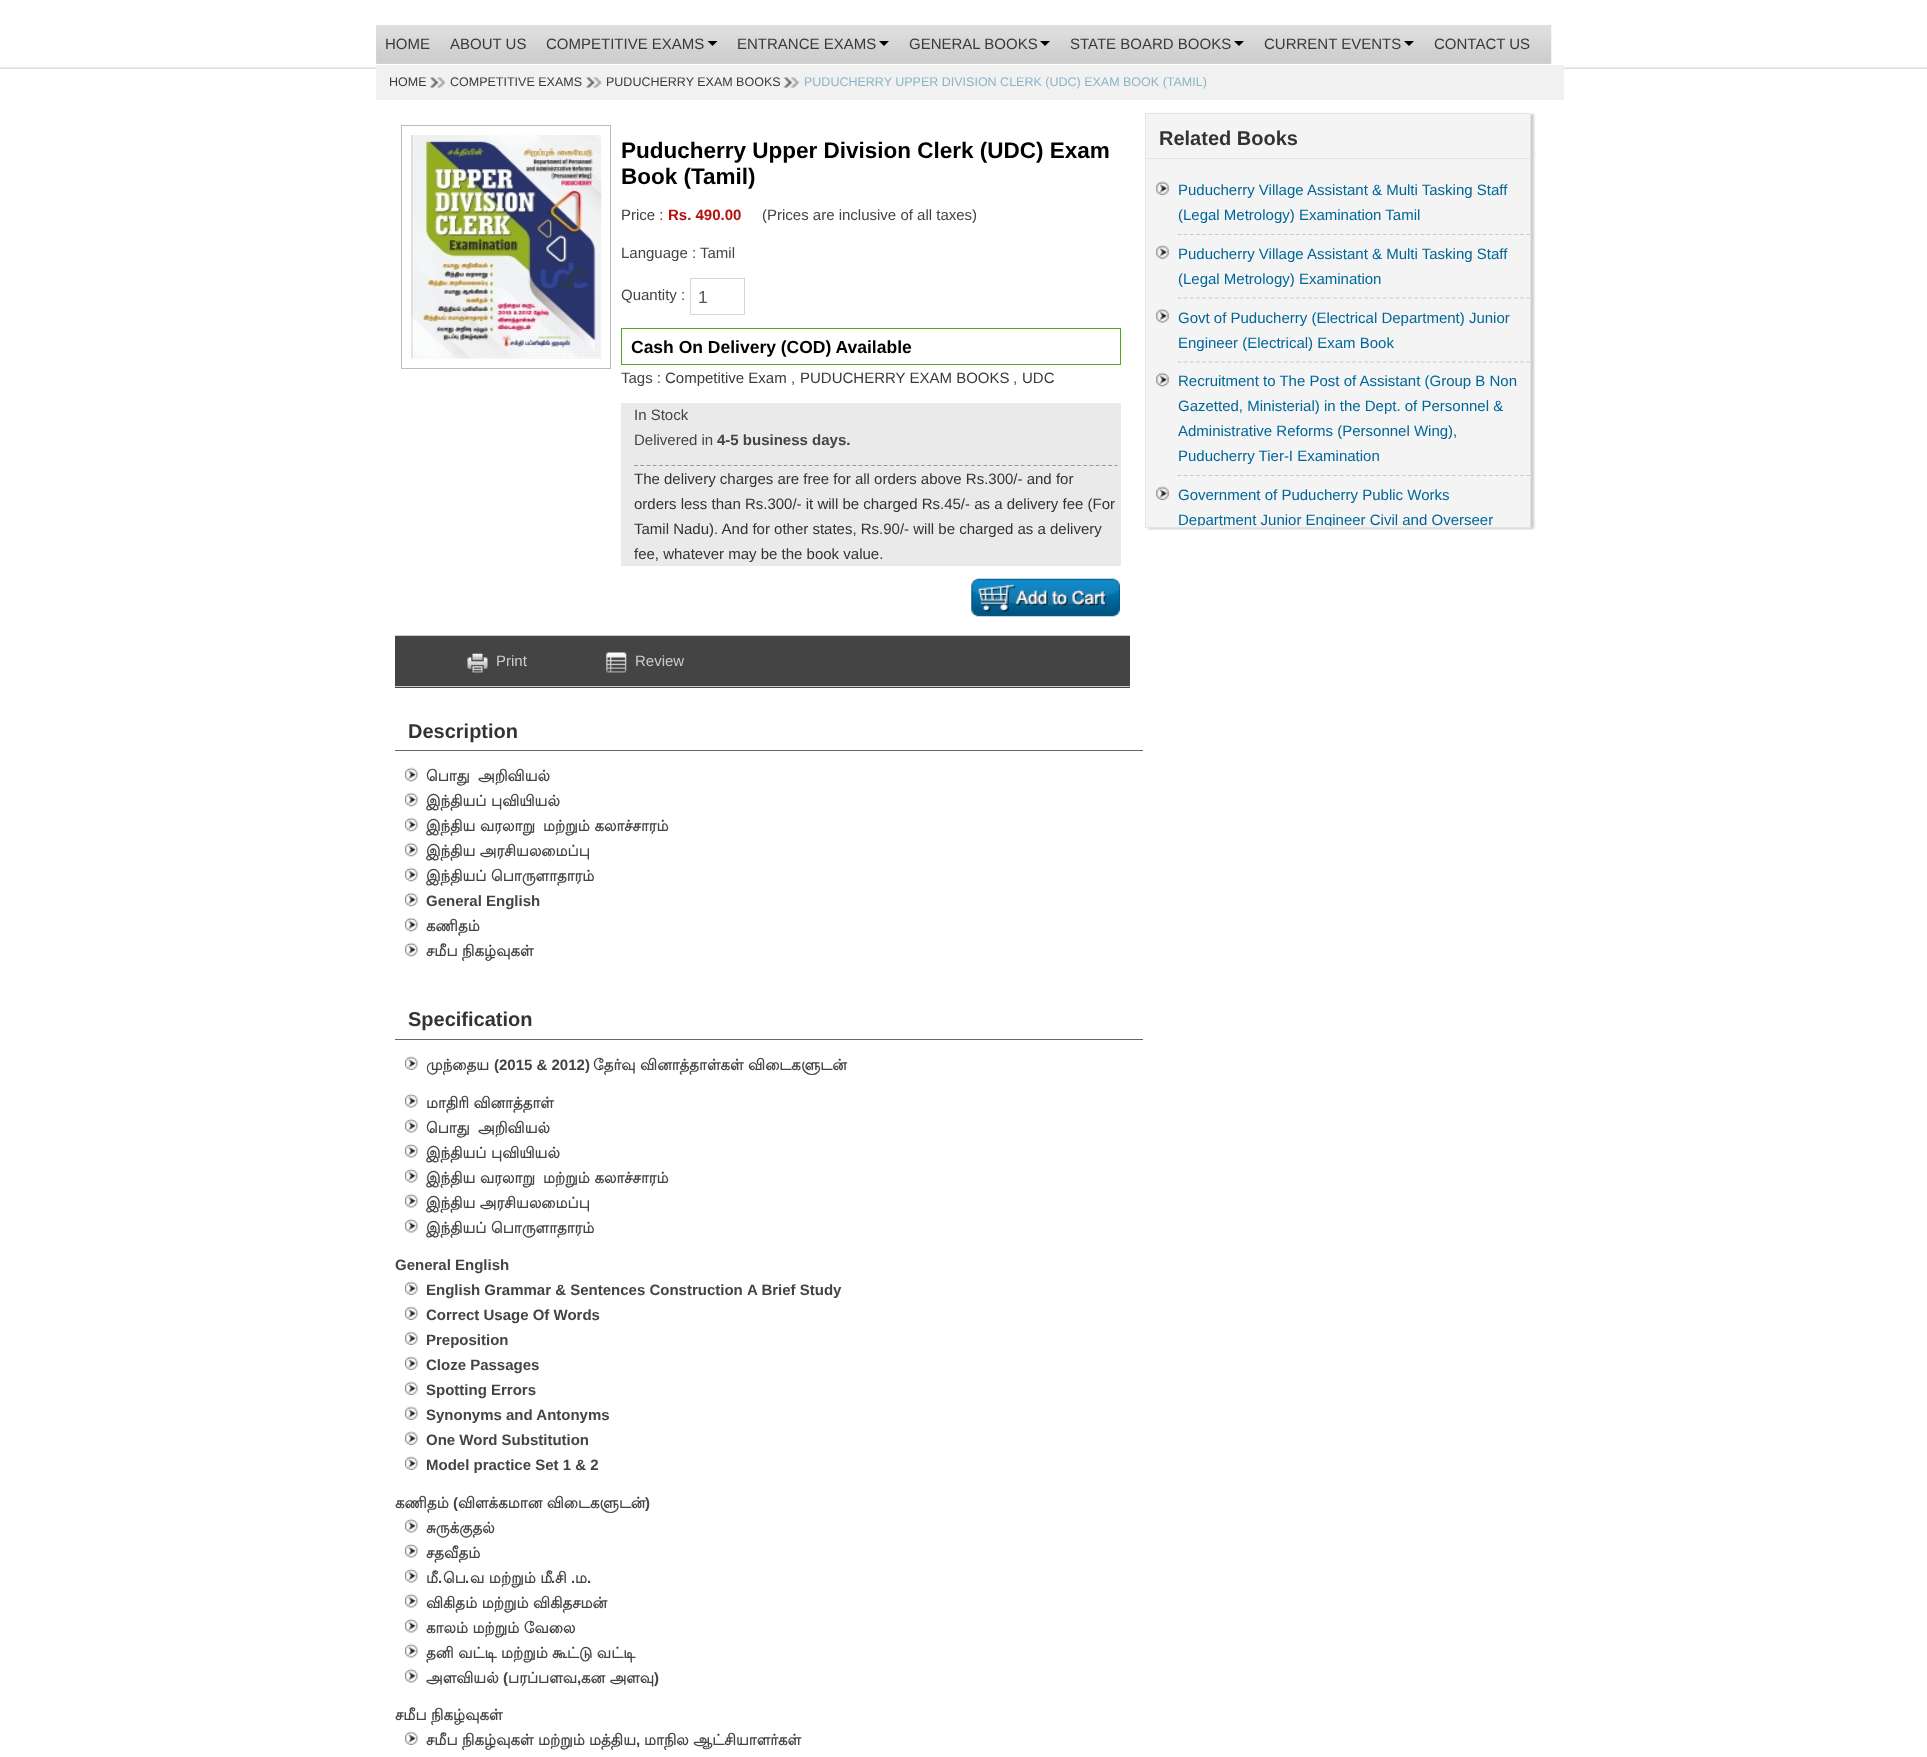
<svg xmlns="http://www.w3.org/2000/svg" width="1927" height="1757">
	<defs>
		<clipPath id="clip1"><rect x="1146" y="171" width="384" height="355" /></clipPath>
	</defs>
	<rect width="100%" height="100%" fill="#FFFFFF" />
	<image x="0" y="67" width="1927" height="2" href="assets/img1.png" />
	<rect x="376" y="25" width="1175" height="39" fill="#DFDFDF" />
	<image x="376" y="25" width="1176" height="39" href="assets/img2.png" />
	<g font-family="Liberation Sans" font-size="15" fill="#3A3A3A">
		<text x="385" y="49">HOME</text>
		<text x="450" y="49">ABOUT US</text>
		<text x="546" y="49">COMPETITIVE EXAMS</text>
	</g>
	<path d="M707.5 41H717.5L712.5 46Z" fill="#000000" />
	<text x="737" y="49" font-family="Liberation Sans" font-size="15" fill="#3A3A3A">ENTRANCE EXAMS</text>
	<path d="M879 41H889L884 46Z" fill="#000000" />
	<text x="909" y="49" font-family="Liberation Sans" font-size="15" fill="#3A3A3A">GENERAL BOOKS</text>
	<path d="M1040 41H1050L1045 46Z" fill="#000000" />
	<text x="1070" y="49" font-family="Liberation Sans" font-size="15" fill="#3A3A3A">STATE BOARD BOOKS</text>
	<path d="M1234 41H1244L1239 46Z" fill="#000000" />
	<text x="1264" y="49" font-family="Liberation Sans" font-size="15" fill="#3A3A3A">CURRENT EVENTS</text>
	<path d="M1404 41H1414L1409 46Z" fill="#000000" />
	<text x="1434" y="49" font-family="Liberation Sans" font-size="15" fill="#3A3A3A">CONTACT US</text>
	<rect x="376" y="65" width="1188" height="35" fill="#F1F1F1" />
	<text x="389" y="86" font-family="Liberation Sans" font-size="12.5" fill="#3A3A3A">HOME</text>
	<image x="430" y="77" width="15" height="11" href="assets/img3.png" />
	<text x="450" y="86" font-family="Liberation Sans" font-size="12.5" fill="#3A3A3A">COMPETITIVE EXAMS</text>
	<image x="586" y="77" width="16" height="11" href="assets/img4.png" />
	<text x="606" y="86" font-family="Liberation Sans" font-size="12.5" fill="#3A3A3A">PUDUCHERRY EXAM BOOKS</text>
	<image x="783" y="77" width="16" height="11" href="assets/img5.png" />
	<text x="804" y="86" font-family="Liberation Sans" font-size="12.5" fill="#8CB4C9">PUDUCHERRY UPPER DIVISION CLERK (UDC) EXAM BOOK (TAMIL)</text>
	<rect x="401.5" y="125.5" width="209" height="243" fill="none" stroke="#B9BCBD" />
	<image x="411" y="135" width="191" height="224" href="assets/img6.png" />
	<g font-family="Liberation Sans" font-size="22.5" font-weight="700" fill="#000000">
		<text x="621" y="158">Puducherry Upper Division Clerk (UDC) Exam</text>
		<text x="621" y="184">Book (Tamil)</text>
	</g>
	<text x="621" y="220" font-family="Liberation Sans" font-size="15" fill="#444444">Price :</text>
	<text x="668" y="220" font-family="Liberation Sans" font-size="15" font-weight="700" fill="#B41010">Rs. 490.00</text>
	<g font-family="Liberation Sans" font-size="15" fill="#444444">
		<text x="762" y="220">(Prices are inclusive of all taxes)</text>
		<text x="621" y="258">Language : Tamil</text>
		<text x="621" y="300">Quantity :</text>
	</g>
	<rect x="690.5" y="278.5" width="54" height="36" fill="none" stroke="#D7D6D6" />
	<text x="698" y="303" font-family="Liberation Sans" font-size="17.5" fill="#555555">1</text>
	<rect x="621.5" y="328.5" width="499" height="36" fill="none" stroke="#50A720" />
	<text x="631" y="353" font-family="Liberation Sans" font-size="17.5" font-weight="700" fill="#000000">Cash On Delivery (COD) Available</text>
	<text x="621" y="383" font-family="Liberation Sans" font-size="15" fill="#444444">Tags :</text>
	<text x="665" y="383" font-family="Liberation Sans" font-size="15" fill="#3A3A3A">Competitive Exam</text>
	<text x="791" y="383" font-family="Liberation Sans" font-size="15" fill="#444444">,</text>
	<text x="800" y="383" font-family="Liberation Sans" font-size="15" fill="#3A3A3A">PUDUCHERRY EXAM BOOKS</text>
	<text x="1013" y="383" font-family="Liberation Sans" font-size="15" fill="#444444">,</text>
	<text x="1022" y="383" font-family="Liberation Sans" font-size="15" fill="#3A3A3A">UDC</text>
	<rect x="621" y="403" width="500" height="163" fill="#EAEAEA" />
	<g font-family="Liberation Sans" font-size="15" fill="#444444">
		<text x="634" y="420">In Stock</text>
		<text x="634" y="445">Delivered in</text>
	</g>
	<text x="717" y="445" font-family="Liberation Sans" font-size="15" font-weight="700" fill="#444444">4-5 business days.</text>
	<path d="M634 465.5H1117.5" fill="none" stroke="#999999" stroke-width="1.2" stroke-dasharray="3.75 2.49" />
	<g font-family="Liberation Sans" font-size="15" fill="#333333">
		<text x="634" y="484">The delivery charges are free for all orders above Rs.300/- and for</text>
		<text x="634" y="509">orders less than Rs.300/- it will be charged Rs.45/- as a delivery fee (For</text>
		<text x="634" y="534">Tamil Nadu). And for other states, Rs.90/- will be charged as a delivery</text>
		<text x="634" y="559">fee, whatever may be the book value.</text>
	</g>
	<image x="971" y="578" width="149" height="39" href="assets/img7.png" />
	<rect x="395" y="636" width="735" height="52" fill="#444444" />
	<rect x="395" y="635" width="735" height="1" fill="#CCCCCC" />
	<rect x="395" y="686" width="735" height="1" fill="#CCCCCC" />
	<image x="467" y="653" width="21" height="20" href="assets/img8.png" />
	<text x="496" y="666" font-family="Liberation Sans" font-size="15" fill="#CCCCCC">Print</text>
	<image x="606" y="652" width="21" height="21" href="assets/img9.png" />
	<text x="635" y="666" font-family="Liberation Sans" font-size="15" fill="#CCCCCC">Review</text>
	<rect x="395" y="750" width="748" height="1" fill="#666666" />
	<text x="408" y="738" font-family="Liberation Sans" font-size="20" font-weight="700" fill="#333333">Description</text>
	<image x="405" y="767" width="13" height="15" href="assets/img10.png" />
	<g font-family="Lohit Tamil" font-size="15" font-weight="700" fill="#444444">
		<text x="426" y="781">பொது</text>
		<text x="478" y="781">அறிவியல்</text>
	</g>
	<image x="405" y="792" width="13" height="15" href="assets/img10.png" />
	<g font-family="Lohit Tamil" font-size="15" font-weight="700" fill="#444444">
		<text x="426" y="806">இந்தியப்</text>
		<text x="491" y="806">புவியியல்</text>
	</g>
	<image x="405" y="817" width="13" height="15" href="assets/img10.png" />
	<g font-family="Lohit Tamil" font-size="15" font-weight="700" fill="#444444">
		<text x="426" y="831">இந்திய</text>
		<text x="480" y="831">வரலாறு</text>
		<text x="543" y="831">மற்றும் கலாச்சாரம்</text>
	</g>
	<image x="405" y="842" width="13" height="15" href="assets/img10.png" />
	<text x="426" y="856" font-family="Lohit Tamil" font-size="15" font-weight="700" fill="#444444">இந்திய அரசியலமைப்பு</text>
	<image x="405" y="867" width="13" height="15" href="assets/img10.png" />
	<text x="426" y="881" font-family="Lohit Tamil" font-size="15" font-weight="700" fill="#444444">இந்தியப் பொருளாதாரம்</text>
	<image x="405" y="892" width="13" height="15" href="assets/img10.png" />
	<text x="426" y="906" font-family="Liberation Sans" font-size="15" font-weight="700" fill="#444444">General English</text>
	<image x="405" y="917" width="13" height="15" href="assets/img10.png" />
	<text x="426" y="931" font-family="Lohit Tamil" font-size="15" font-weight="700" fill="#444444">கணிதம்</text>
	<image x="405" y="942" width="13" height="15" href="assets/img10.png" />
	<text x="426" y="956" font-family="Lohit Tamil" font-size="15" font-weight="700" fill="#444444">சமீப நிகழ்வுகள்</text>
	<rect x="395" y="1039" width="748" height="1" fill="#666666" />
	<text x="408" y="1026" font-family="Liberation Sans" font-size="20" font-weight="700" fill="#333333">Specification</text>
	<image x="405" y="1056" width="13" height="14" href="assets/img11.png" />
	<text x="426" y="1070" font-family="Lohit Tamil" font-size="15" font-weight="700" fill="#444444">முந்தைய</text>
	<text x="494" y="1070" font-family="Liberation Sans" font-size="15" font-weight="700" fill="#444444">(2015 &amp; 2012)</text>
	<text x="593" y="1070" font-family="Lohit Tamil" font-size="15" font-weight="700" fill="#444444">தேர்வு வினாத்தாள்கள் விடைகளுடன்</text>
	<image x="405" y="1093" width="13" height="15" href="assets/img12.png" />
	<text x="426" y="1108" font-family="Lohit Tamil" font-size="15" font-weight="700" fill="#444444">மாதிரி வினாத்தாள்</text>
	<image x="405" y="1118" width="13" height="15" href="assets/img12.png" />
	<g font-family="Lohit Tamil" font-size="15" font-weight="700" fill="#444444">
		<text x="426" y="1133">பொது</text>
		<text x="478" y="1133">அறிவியல்</text>
	</g>
	<image x="405" y="1143" width="13" height="15" href="assets/img12.png" />
	<g font-family="Lohit Tamil" font-size="15" font-weight="700" fill="#444444">
		<text x="426" y="1158">இந்தியப்</text>
		<text x="491" y="1158">புவியியல்</text>
	</g>
	<image x="405" y="1168" width="13" height="15" href="assets/img12.png" />
	<g font-family="Lohit Tamil" font-size="15" font-weight="700" fill="#444444">
		<text x="426" y="1183">இந்திய</text>
		<text x="480" y="1183">வரலாறு</text>
		<text x="543" y="1183">மற்றும் கலாச்சாரம்</text>
	</g>
	<image x="405" y="1193" width="13" height="15" href="assets/img12.png" />
	<text x="426" y="1208" font-family="Lohit Tamil" font-size="15" font-weight="700" fill="#444444">இந்திய அரசியலமைப்பு</text>
	<image x="405" y="1218" width="13" height="15" href="assets/img12.png" />
	<text x="426" y="1233" font-family="Lohit Tamil" font-size="15" font-weight="700" fill="#444444">இந்தியப் பொருளாதாரம்</text>
	<text x="395" y="1270" font-family="Liberation Sans" font-size="15" font-weight="700" fill="#444444">General English</text>
	<image x="405" y="1281" width="13" height="14" href="assets/img11.png" />
	<g font-family="Liberation Sans" font-size="15" font-weight="700" fill="#444444">
		<text x="426" y="1295">English Grammar &amp; Sentences Construction</text>
		<text x="747" y="1295">A Brief Study</text>
	</g>
	<image x="405" y="1306" width="13" height="14" href="assets/img11.png" />
	<text x="426" y="1320" font-family="Liberation Sans" font-size="15" font-weight="700" fill="#444444">Correct Usage Of Words</text>
	<image x="405" y="1331" width="13" height="14" href="assets/img11.png" />
	<text x="426" y="1345" font-family="Liberation Sans" font-size="15" font-weight="700" fill="#444444">Preposition</text>
	<image x="405" y="1356" width="13" height="14" href="assets/img11.png" />
	<text x="426" y="1370" font-family="Liberation Sans" font-size="15" font-weight="700" fill="#444444">Cloze Passages</text>
	<image x="405" y="1381" width="13" height="14" href="assets/img13.png" />
	<text x="426" y="1395" font-family="Liberation Sans" font-size="15" font-weight="700" fill="#444444">Spotting Errors</text>
	<image x="405" y="1406" width="13" height="14" href="assets/img11.png" />
	<text x="426" y="1420" font-family="Liberation Sans" font-size="15" font-weight="700" fill="#444444">Synonyms and Antonyms</text>
	<image x="405" y="1431" width="13" height="14" href="assets/img11.png" />
	<text x="426" y="1445" font-family="Liberation Sans" font-size="15" font-weight="700" fill="#444444">One Word Substitution</text>
	<image x="405" y="1456" width="13" height="14" href="assets/img11.png" />
	<text x="426" y="1470" font-family="Liberation Sans" font-size="15" font-weight="700" fill="#444444">Model practice Set 1 &amp; 2</text>
	<text x="395" y="1508" font-family="Lohit Tamil" font-size="15" font-weight="700" fill="#444444">கணிதம்</text>
	<text x="453" y="1508" font-family="Liberation Sans" font-size="15" font-weight="700" fill="#444444">(</text>
	<text x="458" y="1508" font-family="Lohit Tamil" font-size="15" font-weight="700" fill="#444444">விளக்கமான விடைகளுடன்</text>
	<text x="645" y="1508" font-family="Liberation Sans" font-size="15" font-weight="700" fill="#444444">)</text>
	<image x="405" y="1518" width="13" height="15" href="assets/img12.png" />
	<text x="426" y="1533" font-family="Lohit Tamil" font-size="15" font-weight="700" fill="#444444">சுருக்குதல்</text>
	<image x="405" y="1543" width="13" height="15" href="assets/img12.png" />
	<text x="426" y="1558" font-family="Lohit Tamil" font-size="15" font-weight="700" fill="#444444">சதவீதம்</text>
	<image x="405" y="1568" width="13" height="15" href="assets/img12.png" />
	<text x="426" y="1583" font-family="Lohit Tamil" font-size="15" font-weight="700" fill="#444444">மீ</text>
	<text x="438" y="1583" font-family="Liberation Sans" font-size="15" font-weight="700" fill="#444444">.</text>
	<text x="443" y="1583" font-family="Lohit Tamil" font-size="15" font-weight="700" fill="#444444">பெ</text>
	<text x="465" y="1583" font-family="Liberation Sans" font-size="15" font-weight="700" fill="#444444">.</text>
	<text x="470" y="1583" font-family="Lohit Tamil" font-size="15" font-weight="700" fill="#444444">வ மற்றும் மீ</text>
	<text x="551" y="1583" font-family="Liberation Sans" font-size="15" font-weight="700" fill="#444444">.</text>
	<text x="555" y="1583" font-family="Lohit Tamil" font-size="15" font-weight="700" fill="#444444">சி</text>
	<text x="571" y="1583" font-family="Liberation Sans" font-size="15" font-weight="700" fill="#444444">.</text>
	<text x="575" y="1583" font-family="Lohit Tamil" font-size="15" font-weight="700" fill="#444444">ம</text>
	<text x="587" y="1583" font-family="Liberation Sans" font-size="15" font-weight="700" fill="#444444">.</text>
	<image x="405" y="1593" width="13" height="15" href="assets/img12.png" />
	<text x="426" y="1608" font-family="Lohit Tamil" font-size="15" font-weight="700" fill="#444444">விகிதம் மற்றும் விகிதசமன்</text>
	<image x="405" y="1618" width="13" height="15" href="assets/img12.png" />
	<text x="426" y="1633" font-family="Lohit Tamil" font-size="15" font-weight="700" fill="#444444">காலம் மற்றும் வேலை</text>
	<image x="405" y="1643" width="13" height="15" href="assets/img12.png" />
	<g font-family="Lohit Tamil" font-size="15" font-weight="700" fill="#444444">
		<text x="426" y="1658">தனி வட்டி</text>
		<text x="501" y="1658">மற்றும்</text>
		<text x="552" y="1658">கூட்டு வட்டி</text>
	</g>
	<image x="405" y="1668" width="13" height="15" href="assets/img12.png" />
	<text x="426" y="1683" font-family="Lohit Tamil" font-size="15" font-weight="700" fill="#444444">அளவியல்</text>
	<text x="503" y="1683" font-family="Liberation Sans" font-size="15" font-weight="700" fill="#444444">(</text>
	<text x="508" y="1683" font-family="Lohit Tamil" font-size="15" font-weight="700" fill="#444444">பரப்பளவ</text>
	<text x="577" y="1683" font-family="Liberation Sans" font-size="15" font-weight="700" fill="#444444">,</text>
	<text x="581" y="1683" font-family="Lohit Tamil" font-size="15" font-weight="700" fill="#444444">கன அளவு</text>
	<text x="654" y="1683" font-family="Liberation Sans" font-size="15" font-weight="700" fill="#444444">)</text>
	<text x="395" y="1720" font-family="Lohit Tamil" font-size="15" font-weight="700" fill="#444444">சமீப நிகழ்வுகள்</text>
	<image x="405" y="1731" width="13" height="14" href="assets/img11.png" />
	<g font-family="Lohit Tamil" font-size="15" font-weight="700" fill="#444444">
		<text x="426" y="1745">சமீப நிகழ்வுகள்</text>
		<text x="538" y="1745">மற்றும்</text>
		<text x="589" y="1745">மத்திய</text>
	</g>
	<text x="636" y="1745" font-family="Liberation Sans" font-size="15" font-weight="700" fill="#444444">,</text>
	<text x="644" y="1745" font-family="Lohit Tamil" font-size="15" font-weight="700" fill="#444444">மாநில ஆட்சியாளர்கள்</text>
	<rect x="1148" y="114" width="386" height="415" fill="#CCCCCC" filter="blur(1px)" />
	<rect x="1145.5" y="113.5" width="385" height="414" fill="#F4F4F4" stroke="#E4E4E4" />
	<rect x="1146" y="158" width="384" height="1" fill="#E5E5E5" />
	<text x="1159" y="145" font-family="Liberation Sans" font-size="20" font-weight="700" fill="#333333">Related Books</text>
	<path d="M1177.5 234.5H1530" fill="none" stroke="#C9C9C9" stroke-width="1.2" stroke-dasharray="3.75 2.48" />
	<image x="1156" y="181" width="13" height="14" href="assets/img14.png" />
	<g font-family="Liberation Sans" font-size="15" fill="#006699">
		<text x="1178" y="195">Puducherry Village Assistant &amp; Multi Tasking Staff</text>
		<text x="1178" y="220">(Legal Metrology) Examination Tamil</text>
	</g>
	<path d="M1177.5 298H1530" fill="none" stroke="#C9C9C9" stroke-width="1.2" stroke-dasharray="3.75 2.48" />
	<image x="1156" y="245" width="13" height="14" href="assets/img15.png" />
	<g font-family="Liberation Sans" font-size="15" fill="#006699">
		<text x="1178" y="259">Puducherry Village Assistant &amp; Multi Tasking Staff</text>
		<text x="1178" y="284">(Legal Metrology) Examination</text>
	</g>
	<path d="M1177.5 362H1530" fill="none" stroke="#C9C9C9" stroke-width="1.2" stroke-dasharray="3.75 2.48" />
	<image x="1156" y="308" width="13" height="15" href="assets/img16.png" />
	<g font-family="Liberation Sans" font-size="15" fill="#006699">
		<text x="1178" y="323">Govt of Puducherry (Electrical Department) Junior</text>
		<text x="1178" y="348">Engineer (Electrical) Exam Book</text>
	</g>
	<path d="M1177.5 475.5H1530" fill="none" stroke="#C9C9C9" stroke-width="1.2" stroke-dasharray="3.75 2.48" />
	<image x="1156" y="372" width="13" height="15" href="assets/img17.png" />
	<g font-family="Liberation Sans" font-size="15" fill="#006699">
		<text x="1178" y="386">Recruitment to The Post of Assistant (Group B Non</text>
		<text x="1178" y="411">Gazetted, Ministerial) in the Dept. of Personnel &amp;</text>
		<text x="1178" y="436">Administrative Reforms (Personnel Wing),</text>
		<text x="1178" y="461">Puducherry Tier-I Examination</text>
	</g>
	<image x="1156" y="486" width="13" height="14" href="assets/img14.png" />
	<text x="1178" y="500" font-family="Liberation Sans" font-size="15" fill="#006699">Government of Puducherry Public Works</text>
	<g clip-path="url(#clip1)">
		<text x="1178" y="525" font-family="Liberation Sans" font-size="15" fill="#006699">Department Junior Engineer Civil and Overseer</text>
	</g>
</svg>
